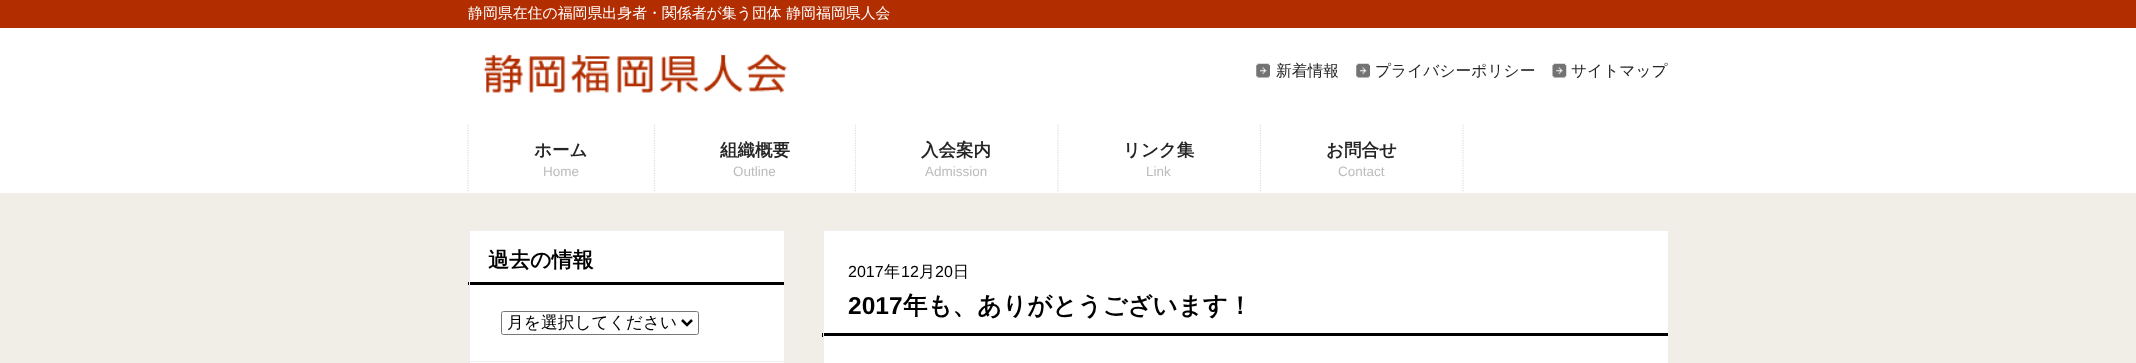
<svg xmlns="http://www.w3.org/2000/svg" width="2136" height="363">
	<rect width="100%" height="100%" fill="#F0EEE6" />
	<rect x="0" y="28" width="2136" height="165" fill="#FFFFFF" />
	<rect x="0" y="0" width="2136" height="28" fill="#B22D00" />
	<text x="468" y="18" font-family="WenQuanYi Zen Hei" font-size="14.9" font-weight="500" fill="#FFFFFF">静岡県在住の福岡県出身者・関係者が集う団体 静岡福岡県人会</text>
	<image x="483" y="53" width="304" height="40" href="assets/img1.png" />
	<image x="1256" y="63" width="14" height="15" href="assets/img2.png" />
	<text x="1276" y="76" font-family="WenQuanYi Zen Hei" font-size="15.75" font-weight="500" fill="#252525">新着情報</text>
	<image x="1356" y="63" width="14" height="15" href="assets/img2.png" />
	<text x="1375" y="76" font-family="WenQuanYi Zen Hei" font-size="15.75" font-weight="500" fill="#252525">プライバシーポリシー</text>
	<image x="1552" y="63" width="15" height="15" href="assets/img3.png" />
	<text x="1571" y="76" font-family="WenQuanYi Zen Hei" font-size="15.75" font-weight="500" fill="#252525">サイトマップ</text>
	<path d="M468 125V192.5" fill="none" stroke="#DEDEDE" stroke-width="1.2" stroke-dasharray="1.25 1.25" />
	<path d="M654.5 125V192.5" fill="none" stroke="#DEDEDE" stroke-width="1.2" stroke-dasharray="1.25 1.25" />
	<text x="534" y="156" font-family="WenQuanYi Zen Hei" font-size="17.5" font-weight="700" fill="#252525">ホーム</text>
	<text x="543" y="176" font-family="Liberation Sans" font-size="13.5" fill="#BCBCBC">Home</text>
	<path d="M855.5 125V192.5" fill="none" stroke="#DEDEDE" stroke-width="1.2" stroke-dasharray="1.25 1.25" />
	<text x="720" y="156" font-family="WenQuanYi Zen Hei" font-size="17.5" font-weight="700" fill="#252525">組織概要</text>
	<text x="733" y="176" font-family="Liberation Sans" font-size="13.5" fill="#BCBCBC">Outline</text>
	<path d="M1058 125V192.5" fill="none" stroke="#DEDEDE" stroke-width="1.2" stroke-dasharray="1.25 1.25" />
	<text x="921" y="156" font-family="WenQuanYi Zen Hei" font-size="17.5" font-weight="700" fill="#252525">入会案内</text>
	<text x="925" y="176" font-family="Liberation Sans" font-size="13.5" fill="#BCBCBC">Admission</text>
	<path d="M1260.5 125V192.5" fill="none" stroke="#DEDEDE" stroke-width="1.2" stroke-dasharray="1.25 1.25" />
	<text x="1123" y="156" font-family="WenQuanYi Zen Hei" font-size="17.5" font-weight="700" fill="#252525">リンク集</text>
	<text x="1146" y="176" font-family="Liberation Sans" font-size="13.5" fill="#BCBCBC">Link</text>
	<path d="M1463 125V192.5" fill="none" stroke="#DEDEDE" stroke-width="1.2" stroke-dasharray="1.25 1.25" />
	<text x="1326" y="156" font-family="WenQuanYi Zen Hei" font-size="17.5" font-weight="700" fill="#252525">お問合せ</text>
	<text x="1338" y="176" font-family="Liberation Sans" font-size="13.5" fill="#BCBCBC">Contact</text>
	<rect x="470" y="231" width="314" height="51" fill="#FFFFFF" />
	<rect x="468" y="282" width="317" height="3" fill="#000000" />
	<rect x="469" y="230" width="316" height="1" fill="#EEEEEE" />
	<rect x="784" y="230" width="1" height="133" fill="#EEEEEE" />
	<rect x="469" y="230" width="1" height="55" fill="#EEEEEE" />
	<text x="488" y="267" font-family="WenQuanYi Zen Hei" font-size="21" font-weight="700" fill="#000000">過去の情報</text>
	<rect x="470" y="285" width="314" height="78" fill="#FFFFFF" />
	<rect x="469" y="361" width="316" height="1" fill="#EEEEEE" />
	<rect x="469" y="285" width="1" height="78" fill="#EEEEEE" />
	<rect x="501.5" y="311.5" width="197" height="23" rx="2" fill="none" stroke="#767676" />
	<path d="M682 320L687 325L692 320" fill="none" stroke="#000000" stroke-width="2.5" />
	<text x="507" y="328" font-family="WenQuanYi Zen Hei" font-size="16.75" font-weight="500" fill="#000000">月を選択してください</text>
	<rect x="824" y="231" width="844" height="102" fill="#FFFFFF" />
	<rect x="822" y="333" width="847" height="4" fill="#000000" />
	<rect x="823" y="230" width="846" height="1" fill="#EEEEEE" />
	<rect x="1668" y="230" width="1" height="133" fill="#EEEEEE" />
	<rect x="823" y="230" width="1" height="133" fill="#EEEEEE" />
	<text x="848" y="277" font-family="Liberation Sans" font-size="16" fill="#000000">2017</text>
	<text x="884" y="277" font-family="WenQuanYi Zen Hei" font-size="16" font-weight="500" fill="#000000">年</text>
	<text x="901" y="277" font-family="Liberation Sans" font-size="16" fill="#000000">12</text>
	<text x="919" y="277" font-family="WenQuanYi Zen Hei" font-size="16" font-weight="500" fill="#000000">月</text>
	<text x="935" y="277" font-family="Liberation Sans" font-size="16" fill="#000000">20</text>
	<text x="953" y="277" font-family="WenQuanYi Zen Hei" font-size="16" font-weight="500" fill="#000000">日</text>
	<text x="848" y="314" font-family="Liberation Sans" font-size="24.5" font-weight="700" fill="#000000">2017</text>
	<text x="903" y="314" font-family="WenQuanYi Zen Hei" font-size="24.5" font-weight="700" fill="#000000">年も、ありがとうございます！</text>
	<rect x="824" y="336" width="844" height="27" fill="#FFFFFF" />
</svg>
